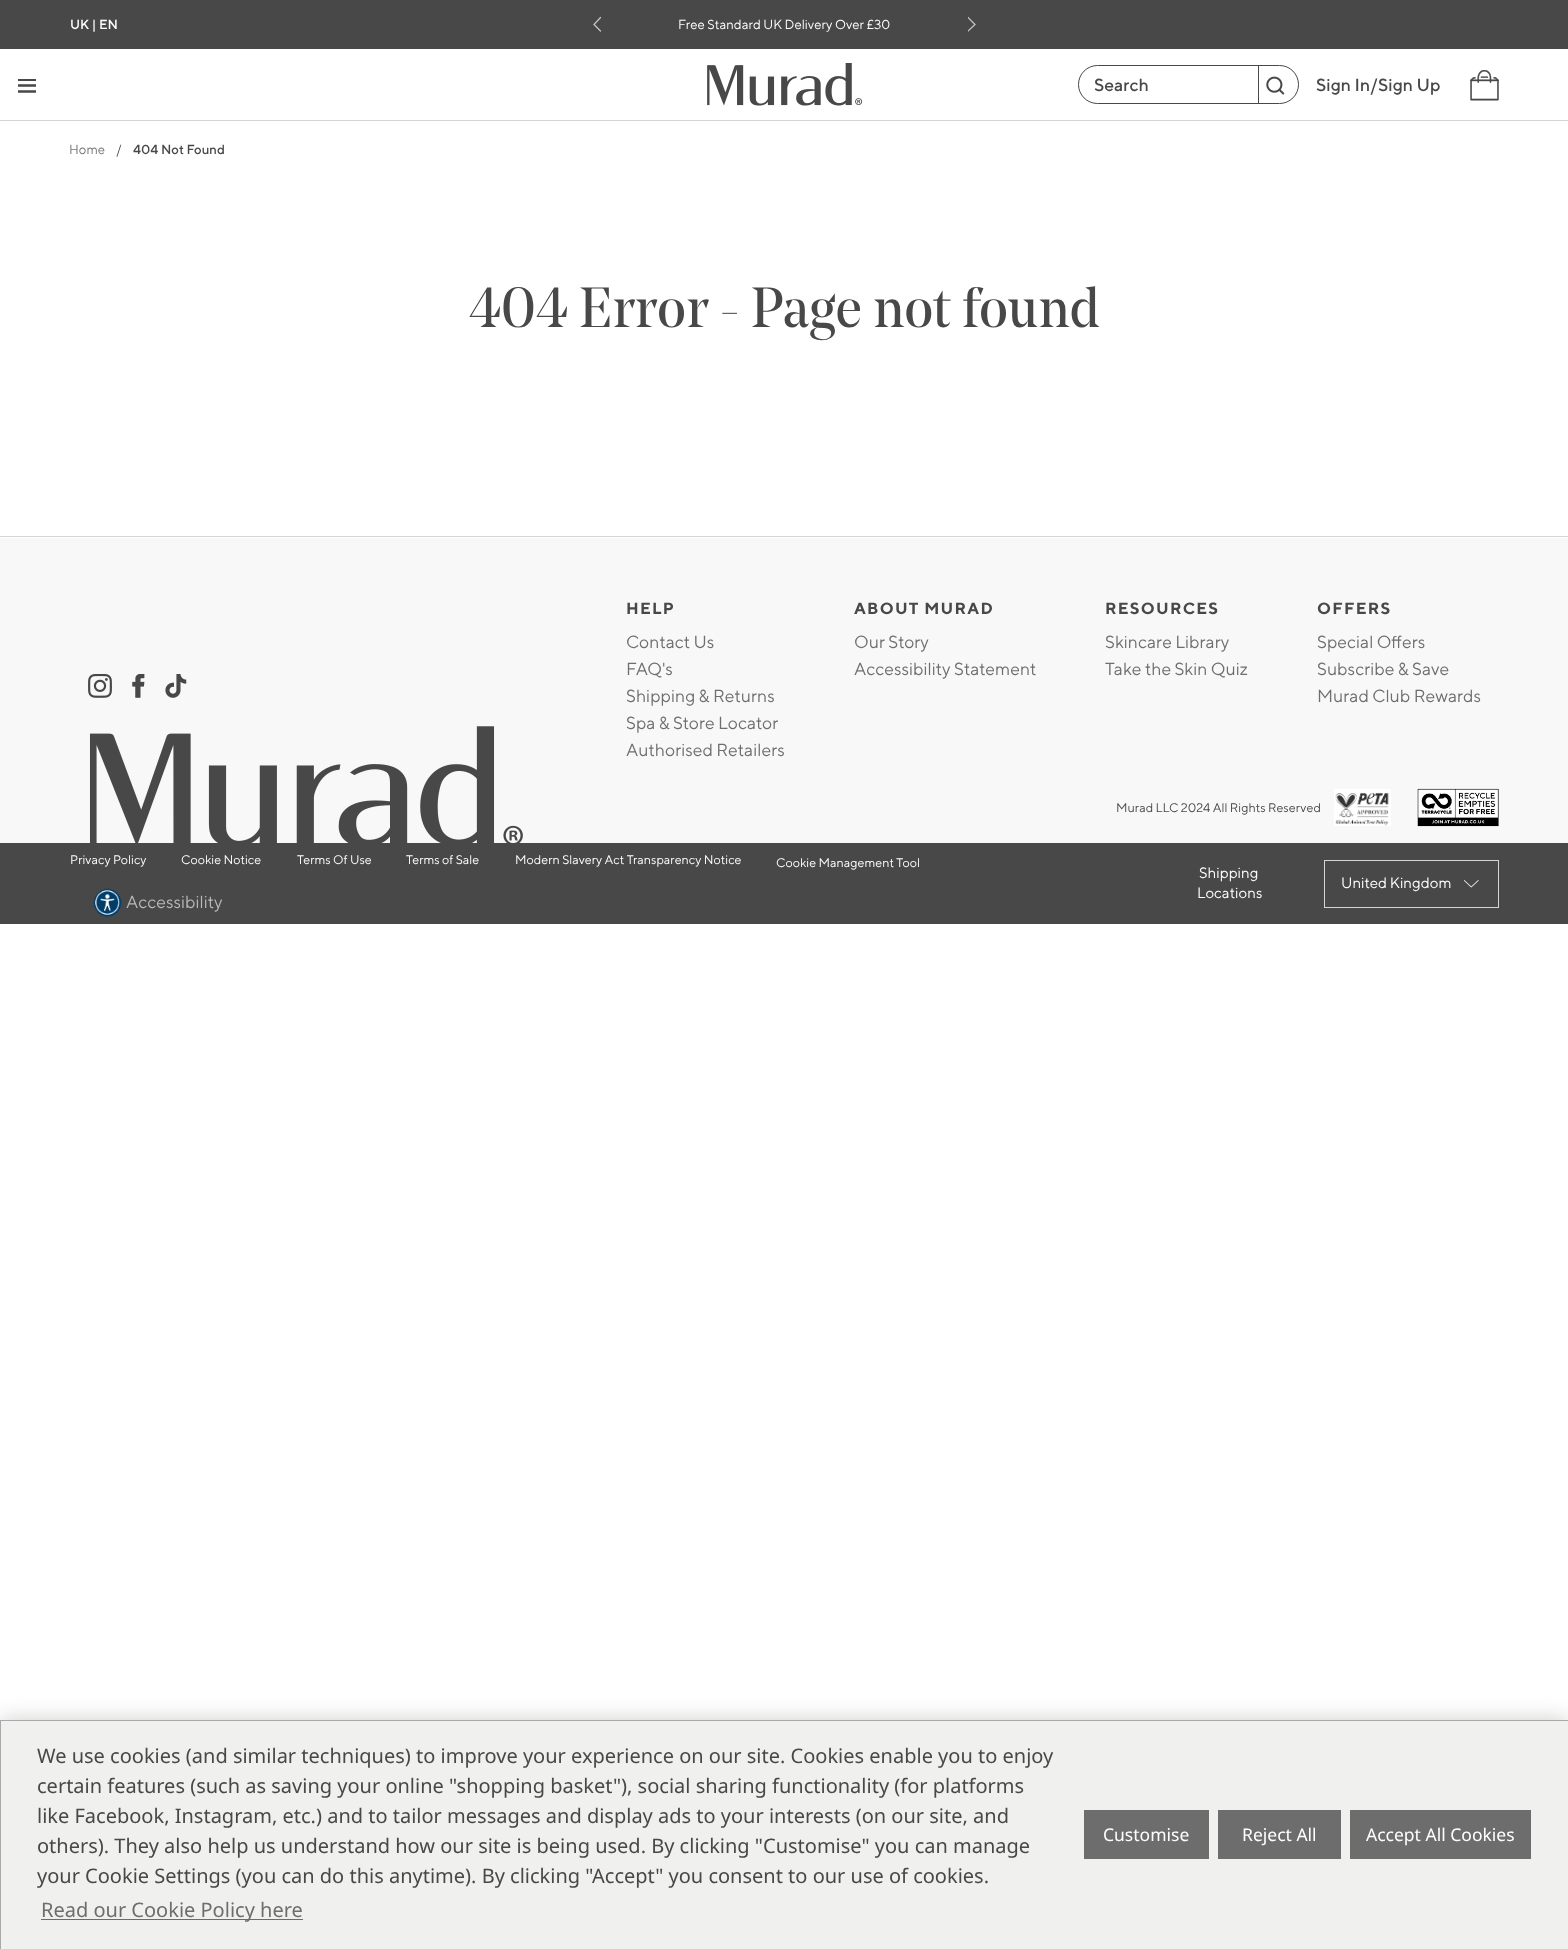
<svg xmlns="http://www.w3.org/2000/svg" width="1568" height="1949">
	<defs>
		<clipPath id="clip1"><rect x="968" y="16" width="8" height="17" /></clipPath>
		<clipPath id="clip2"><rect x="18" y="76" width="18" height="19" /></clipPath>
	</defs>
	<rect width="100%" height="100%" fill="#FFFFFF" />
	<rect x="0" y="0" width="1568" height="49" fill="#484848" />
	<text x="70" y="29" font-family="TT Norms" font-size="13.1" font-weight="500" fill="#FFFFFF">UK | EN</text>
	<path d="M600.5 31L594 24.5L600.5 17.5" fill="none" stroke="#C8C8C8" stroke-width="1.2" stroke-linecap="round" />
	<g clip-path="url(#clip1)">
		<path d="M968 31L975 24.5L968 17.5" fill="none" stroke="#C8C8C8" stroke-width="1.2" stroke-linecap="round" />
	</g>
	<text x="678" y="29" font-family="TT Norms" font-size="13.1" fill="#FFFFFF">Free Standard UK Delivery Over £30</text>
	<rect x="0" y="120" width="1568" height="1" fill="#D5D5D5" />
	<rect x="18" y="79" width="18" height="2" fill="#484848" />
	<g clip-path="url(#clip2)">
		<path d="M18.5 85.5H35M18.5 91.5H35" fill="none" stroke="#484848" stroke-width="2.3" stroke-linecap="square" />
	</g>
	<image x="707" y="63" width="156" height="43" href="assets/img1.png" />
	<rect x="1078.5" y="65.5" width="220" height="38" rx="19" fill="none" stroke="#484848" />
	<text x="1094" y="91" font-family="TT Norms" font-size="17.5" font-weight="500" fill="#484848">Search</text>
	<rect x="1258" y="66" width="1" height="37" fill="#484848" />
	<image x="1266" y="76" width="19" height="19" href="assets/img2.png" />
	<text x="1316" y="91" font-family="TT Norms" font-size="17.5" font-weight="500" fill="#484848">Sign In/Sign Up</text>
	<image x="1470" y="70" width="29" height="31" href="assets/img3.png" />
	<text x="69" y="154" font-family="TT Norms" font-size="13.1" fill="#757575">Home</text>
	<text x="116" y="154" font-family="TT Norms" font-size="13.1" fill="#484848">/</text>
	<text x="133" y="154" font-family="TT Norms" font-size="13.1" font-weight="500" fill="#484848">404 Not Found</text>
	<text x="469" y="327" font-family="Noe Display" font-size="56.25" fill="#484848">404 Error - Page not found</text>
	<rect x="0" y="538" width="1568" height="305" fill="#F8F8F8" />
	<rect x="0" y="536" width="1568" height="1" fill="#D5D5D5" />
	<image x="88" y="674" width="24" height="24" href="assets/img4.png" />
	<image x="132" y="674" width="13" height="24" href="assets/img5.png" />
	<image x="165" y="674" width="22" height="24" href="assets/img6.png" />
	<image x="89" y="726" width="434" height="117" href="assets/img7.png" />
	<text x="626" y="614" font-family="TT Norms" font-size="16.25" font-weight="700" letter-spacing="1.25" fill="#484848">HELP</text>
	<g font-family="TT Norms" font-size="17.5" fill="#6E6E6E">
		<text x="626" y="648">Contact Us</text>
		<text x="626" y="675">FAQ's</text>
		<text x="626" y="702">Shipping &amp; Returns</text>
		<text x="626" y="729">Spa &amp; Store Locator</text>
		<text x="626" y="756">Authorised Retailers</text>
	</g>
	<text x="854" y="614" font-family="TT Norms" font-size="16.25" font-weight="700" letter-spacing="1.25" fill="#484848">ABOUT MURAD</text>
	<g font-family="TT Norms" font-size="17.5" fill="#6E6E6E">
		<text x="854" y="648">Our Story</text>
		<text x="854" y="675">Accessibility Statement</text>
	</g>
	<text x="1105" y="614" font-family="TT Norms" font-size="16.25" font-weight="700" letter-spacing="1.25" fill="#484848">RESOURCES</text>
	<g font-family="TT Norms" font-size="17.5" fill="#6E6E6E">
		<text x="1105" y="648">Skincare Library</text>
		<text x="1105" y="675">Take the Skin Quiz</text>
	</g>
	<text x="1317" y="614" font-family="TT Norms" font-size="16.25" font-weight="700" letter-spacing="1.25" fill="#484848">OFFERS</text>
	<g font-family="TT Norms" font-size="17.5" fill="#6E6E6E">
		<text x="1317" y="648">Special Offers</text>
		<text x="1317" y="675">Subscribe &amp; Save</text>
		<text x="1317" y="702">Murad Club Rewards</text>
	</g>
	<text x="1116" y="812" font-family="TT Norms" font-size="12.5" fill="#484848">Murad LLC 2024 All Rights Reserved</text>
	<image x="1334" y="789" width="57" height="37" href="assets/img8.png" />
	<image x="1417" y="788" width="82" height="39" href="assets/img9.png" />
	<rect x="0" y="843" width="1568" height="81" fill="#484848" />
	<g font-family="TT Norms" font-size="12.5" fill="#FFFFFF">
		<text x="70" y="864">Privacy Policy</text>
		<text x="181" y="864">Cookie Notice</text>
		<text x="297" y="864">Terms Of Use</text>
		<text x="406" y="864">Terms of Sale</text>
		<text x="515" y="864">Modern Slavery Act Transparency Notice</text>
		<text x="776" y="867">Cookie Management Tool</text>
	</g>
	<image x="93" y="888" width="29" height="29" href="assets/img10.png" />
	<text x="126" y="908" font-family="TT Norms" font-size="17.5" fill="#B8B8B8">Accessibility</text>
	<g font-family="TT Norms" font-size="15" fill="#FFFFFF">
		<text x="1199" y="878">Shipping</text>
		<text x="1197" y="898">Locations</text>
	</g>
	<image x="1464" y="880" width="15" height="8" href="assets/img11.png" />
	<rect x="1324.5" y="860.5" width="174" height="47" fill="none" stroke="#D5D5D5" />
	<text x="1341" y="888" font-family="TT Norms" font-size="15" fill="#FFFFFF">United Kingdom</text>
	<rect x="0" y="1720" width="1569" height="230" fill="#000000" fill-opacity="0.2" filter="blur(11px)" />
	<rect x="0.5" y="1720.5" width="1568" height="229" fill="#F0F0EF" stroke="#A9A9A9" />
	<g font-family="Noto Sans" font-size="20" fill="#484848">
		<text x="37" y="1763">We use cookies (and similar techniques) to improve your experience on our site. Cookies enable you to enjoy</text>
		<text x="37" y="1793">certain features (such as saving your online "shopping basket"), social sharing functionality (for platforms</text>
		<text x="37" y="1823">like Facebook, Instagram, etc.) and to tailor messages and display ads to your interests (on our site, and</text>
		<text x="37" y="1853">others). They also help us understand how our site is being used. By clicking "Customise" you can manage</text>
		<text x="37" y="1883">your Cookie Settings (you can do this anytime). By clicking "Accept" you consent to our use of cookies.</text>
	</g>
	<rect x="41" y="1919" width="262" height="1" fill="#6B6B6B" />
	<text x="41" y="1917" font-family="Noto Sans" font-size="20" fill="#6E6E6E">Read our Cookie Policy here</text>
	<rect x="1084" y="1810" width="125" height="49" fill="#6D6D6D" />
	<text x="1103" y="1841" font-family="Noto Sans" font-size="17.5" fill="#FFFFFF">Customise</text>
	<rect x="1218" y="1810" width="123" height="49" fill="#6D6D6D" />
	<text x="1242" y="1841" font-family="Noto Sans" font-size="17.5" fill="#FFFFFF">Reject All</text>
	<rect x="1350" y="1810" width="181" height="49" fill="#6D6D6D" />
	<text x="1366" y="1841" font-family="Noto Sans" font-size="17.5" fill="#FFFFFF">Accept All Cookies</text>
</svg>
